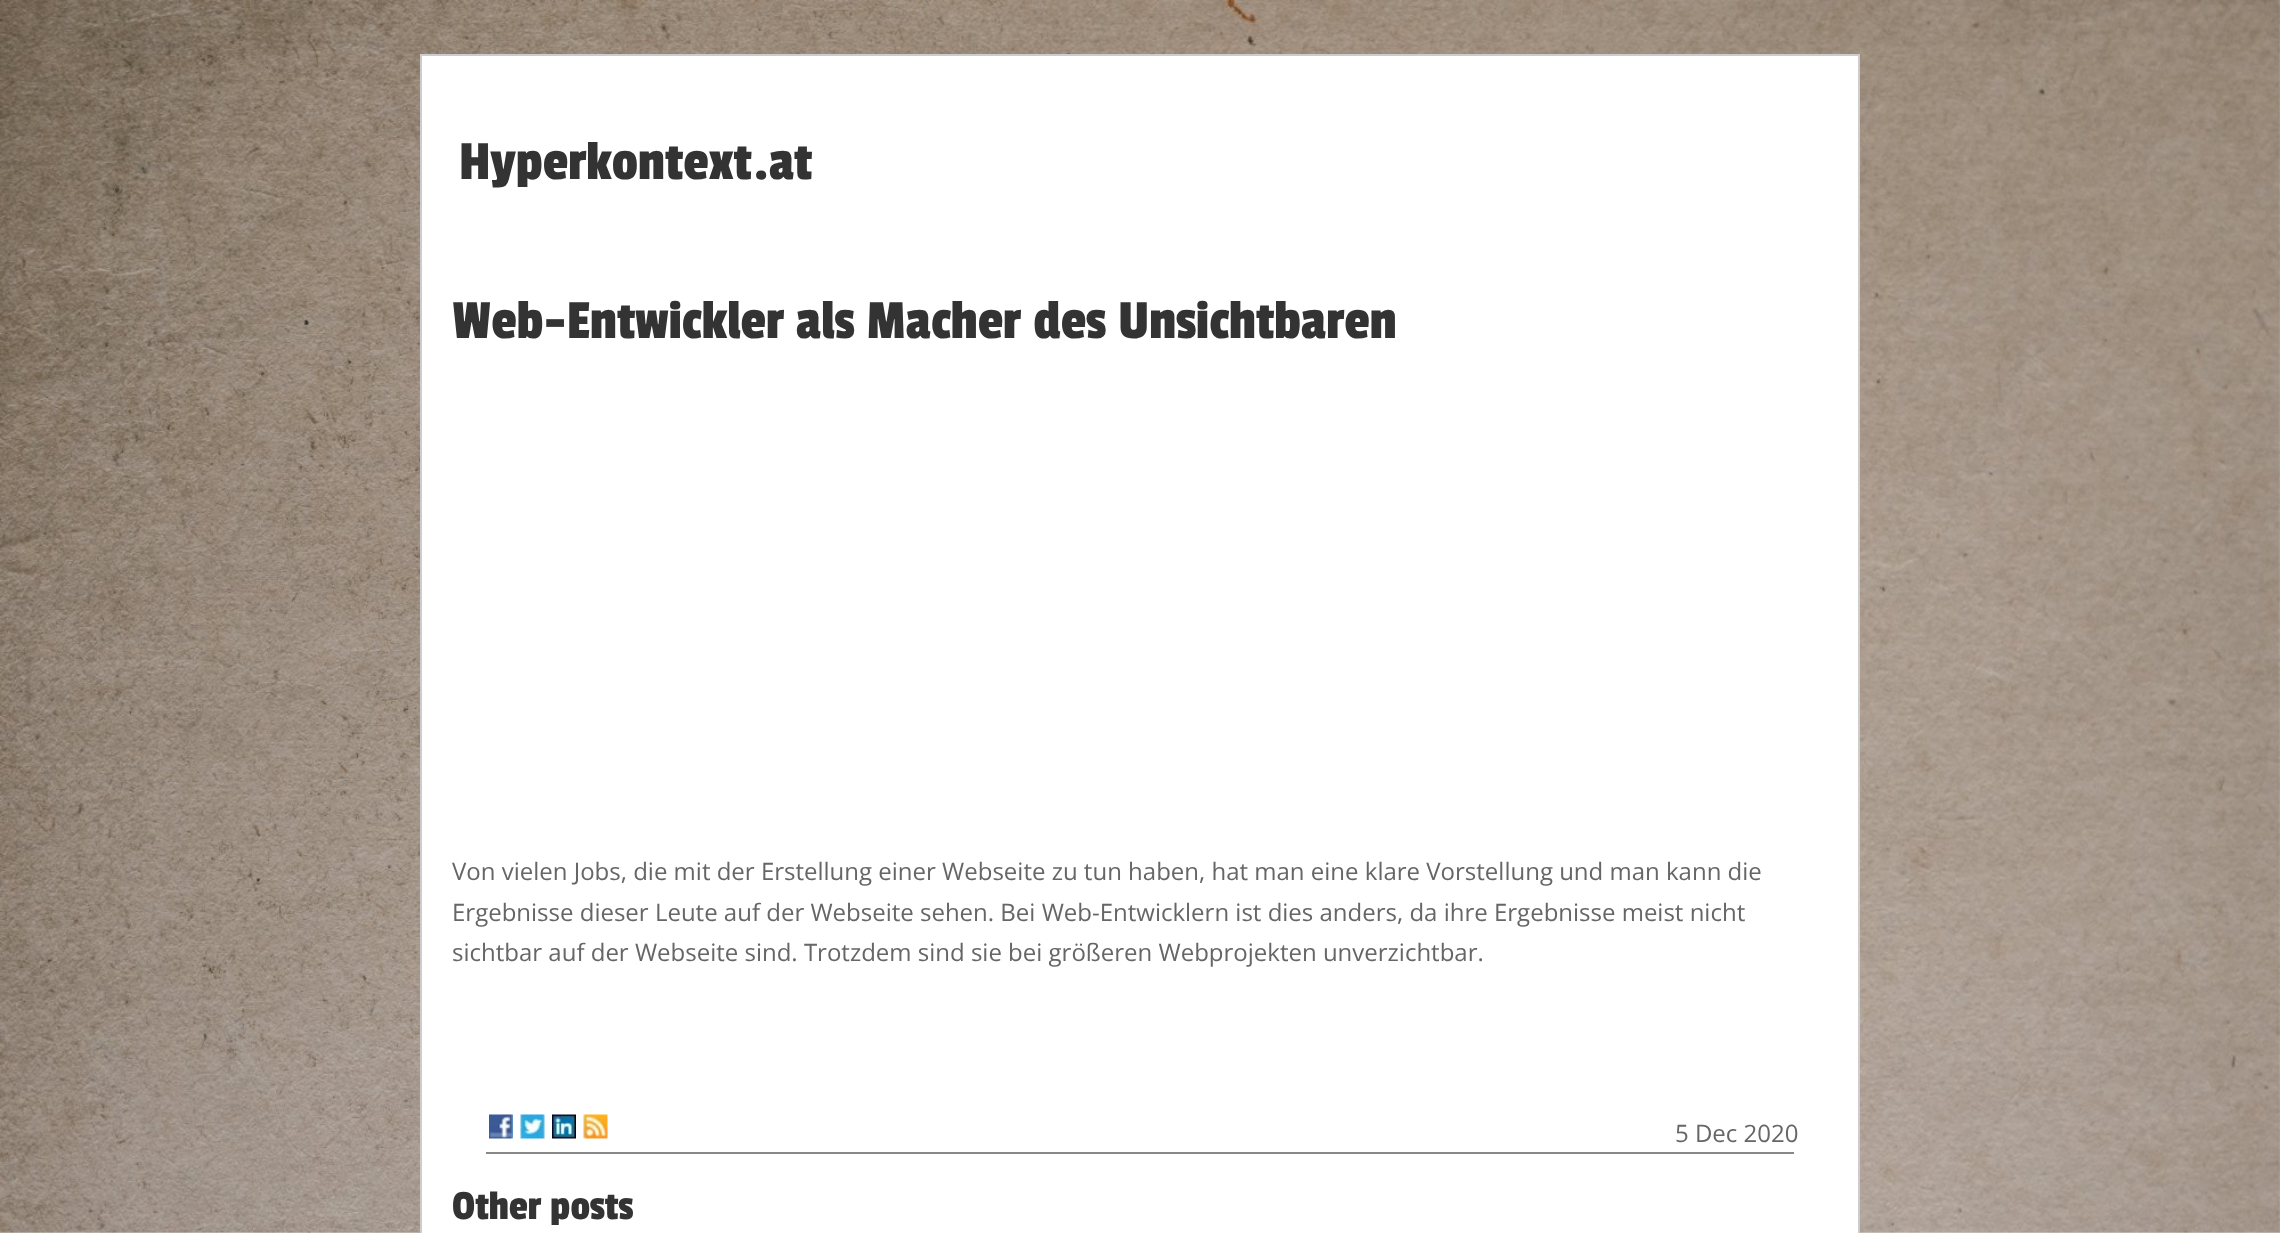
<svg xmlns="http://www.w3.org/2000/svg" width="2280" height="1233">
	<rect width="100%" height="100%" fill="#FFFFFF" />
	<image x="0" y="0" width="2280" height="1233" href="assets/img1.png" />
	<rect x="421" y="55" width="1438" height="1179" fill="#FFFFFF" stroke="#CCCCCC" stroke-width="2" />
	<g font-family="Passion One" font-size="57.6" fill="#333333">
		<text x="459" y="179">Hyperkontext.at</text>
		<text x="452" y="338">Web-Entwickler als Macher des Unsichtbaren</text>
	</g>
	<g font-family="Open Sans" font-size="24" fill="#666666">
		<text x="452" y="880">Von vielen Jobs, die mit der Erstellung einer Webseite zu tun haben, hat man eine klare Vorstellung und man kann die</text>
		<text x="452" y="921">Ergebnisse dieser Leute auf der Webseite sehen. Bei Web-Entwicklern ist dies anders, da ihre Ergebnisse meist nicht</text>
		<text x="452" y="961">sichtbar auf der Webseite sind. Trotzdem sind sie bei größeren Webprojekten unverzichtbar.</text>
	</g>
	<image x="489" y="1114" width="24" height="25" href="assets/img2.png" />
	<image x="520" y="1114" width="25" height="25" href="assets/img3.png" />
	<image x="552" y="1114" width="24" height="25" href="assets/img4.png" />
	<image x="583" y="1114" width="25" height="25" href="assets/img5.png" />
	<text x="1675" y="1142" font-family="Open Sans" font-size="24" fill="#666666">5 Dec 2020</text>
	<rect x="486" y="1152" width="1308" height="2" fill="#888888" />
	<text x="452" y="1219" font-family="Passion One" font-size="43" fill="#333333">Other posts</text>
</svg>
